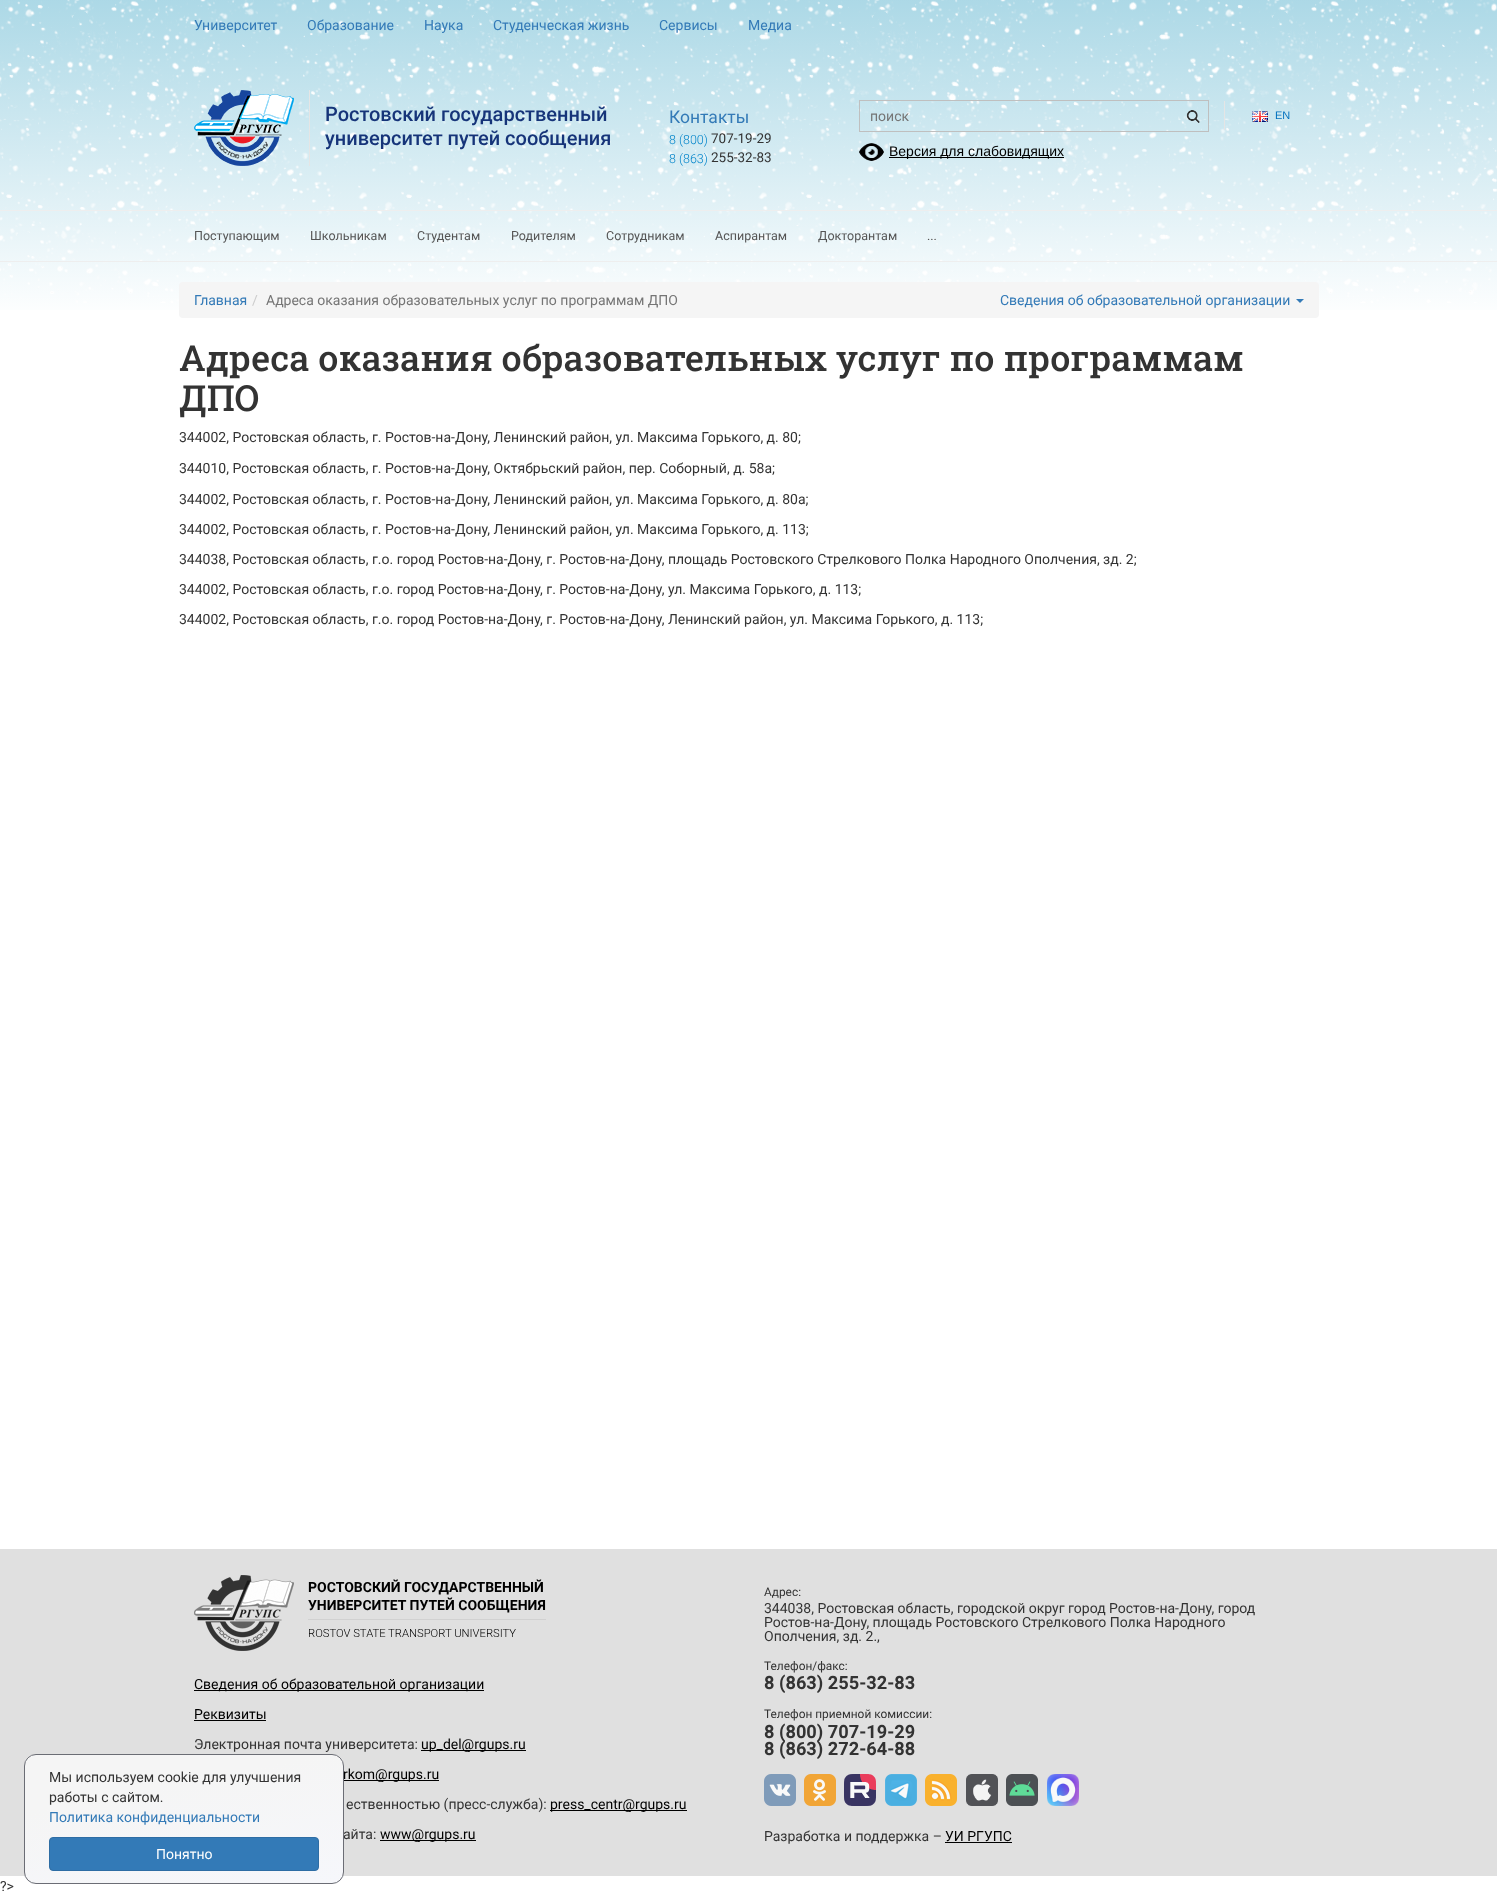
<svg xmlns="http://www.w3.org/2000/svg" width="1497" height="1896">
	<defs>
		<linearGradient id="g1" gradientUnits="userSpaceOnUse" x1="749" y1="-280" x2="749" y2="320"><stop offset="0" stop-color="#64B7D1" /><stop offset="1" stop-color="#FFFFFF" /></linearGradient>
		<clipPath id="clip1"><rect x="24" y="1754" width="320" height="130" rx="12" /></clipPath>
		<linearGradient id="g2" gradientUnits="userSpaceOnUse" x1="166" y1="1728" x2="202" y2="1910"><stop offset="0.3" stop-color="#F5F5F5" /><stop offset="1" stop-color="#F6F7FB" /></linearGradient>
	</defs>
	<rect width="100%" height="100%" fill="#FFFFFF" />
	<rect x="0" y="0" width="1497" height="310" fill="url(#g1)" />
	<image x="1" y="0" width="1496" height="303" href="assets/img2.png" />
	<image x="0" y="0" width="1497" height="303" href="assets/img1.png" />
	<g font-family="Roboto" font-size="14" fill="#337AB7">
		<text x="194" y="30">Университет</text>
		<text x="307" y="30">Образование</text>
		<text x="424" y="30">Наука</text>
		<text x="493" y="30">Студенческая жизнь</text>
		<text x="659" y="30">Сервисы</text>
		<text x="748" y="30">Медиа</text>
	</g>
	<rect x="309" y="90" width="1" height="76" fill="#E5E5E5" />
	<image x="194" y="90" width="100" height="76" href="assets/img3.png" />
	<g font-family="Roboto" font-size="20" font-weight="500" fill="#163479">
		<text x="325" y="121">Ростовский государственный</text>
		<text x="325" y="145">университет путей сообщения</text>
	</g>
	<text x="669" y="123" font-family="Roboto" font-size="17.5" fill="#337AB7">Контакты</text>
	<text x="669" y="144" font-family="Roboto" font-size="12.5" font-weight="300" fill="#0084CA">8 (800)</text>
	<text x="711" y="143" font-family="Roboto" font-size="13.5" fill="#333333">707-19-29</text>
	<text x="669" y="163" font-family="Roboto" font-size="12.5" font-weight="300" fill="#0084CA">8 (863)</text>
	<text x="711" y="162" font-family="Roboto" font-size="13.5" fill="#333333">255-32-83</text>
	<rect x="859.5" y="100.5" width="349" height="31" fill="none" stroke="#BFBFBF" />
	<text x="870" y="121" font-family="Roboto" font-size="14" fill="#757575">поиск</text>
	<image x="1186" y="110" width="14" height="13" href="assets/img4.png" />
	<image x="859" y="143" width="25" height="18" href="assets/img5.png" />
	<rect x="889" y="157" width="175" height="1" fill="#000000" />
	<text x="889" y="156" font-family="Liberation Sans" font-size="14" fill="#000000">Версия для слабовидящих</text>
	<rect x="1224" y="101" width="1" height="29" fill="#E5E5E5" />
	<image x="1252" y="111" width="16" height="11" href="assets/img6.png" />
	<text x="1275" y="119" font-family="Liberation Sans" font-size="11" fill="#0070BE">EN</text>
	<rect x="0" y="210" width="1497" height="1" fill="#EEEEEE" />
	<rect x="0" y="261" width="1497" height="1" fill="#EEEEEE" />
	<g font-family="Roboto" font-size="12.5" fill="#555555">
		<text x="194" y="240">Поступающим</text>
		<text x="310" y="240">Школьникам</text>
		<text x="417" y="240">Студентам</text>
		<text x="511" y="240">Родителям</text>
		<text x="606" y="240">Сотрудникам</text>
		<text x="715" y="240">Аспирантам</text>
		<text x="818" y="240">Докторантам</text>
		<text x="927" y="240">...</text>
	</g>
	<rect x="179" y="282" width="1140" height="36" rx="4" fill="#F5F5F5" />
	<text x="194" y="305" font-family="Roboto" font-size="14" fill="#337AB7">Главная</text>
	<text x="252" y="305" font-family="Roboto" font-size="14" fill="#CCCCCC">/</text>
	<text x="266" y="305" font-family="Roboto" font-size="14" fill="#757575">Адреса оказания образовательных услуг по программам ДПО</text>
	<text x="1000" y="305" font-family="Roboto" font-size="14" fill="#337AB7">Сведения об образовательной организации</text>
	<path d="M1296 299H1304L1300 303Z" fill="#337AB7" />
	<g font-family="Roboto Slab" font-size="36" font-weight="500" fill="#333333">
		<text x="179" y="371">Адреса оказания образовательных услуг по программам</text>
		<text x="179" y="411">ДПО</text>
	</g>
	<g font-family="Roboto" font-size="14" fill="#333333">
		<text x="179" y="442">344002, Ростовская область, г. Ростов-на-Дону, Ленинский район, ул. Максима Горького, д. 80;</text>
		<text x="179" y="473">344010, Ростовская область, г. Ростов-на-Дону, Октябрьский район, пер. Соборный, д. 58а;</text>
		<text x="179" y="504">344002, Ростовская область, г. Ростов-на-Дону, Ленинский район, ул. Максима Горького, д. 80а;</text>
		<text x="179" y="534">344002, Ростовская область, г. Ростов-на-Дону, Ленинский район, ул. Максима Горького, д. 113;</text>
		<text x="179" y="564">344038, Ростовская область, г.о. город Ростов-на-Дону, г. Ростов-на-Дону, площадь Ростовского Стрелкового Полка Народного Ополчения, зд. 2;</text>
		<text x="179" y="594">344002, Ростовская область, г.о. город Ростов-на-Дону, г. Ростов-на-Дону, ул. Максима Горького, д. 113;</text>
		<text x="179" y="624">344002, Ростовская область, г.о. город Ростов-на-Дону, г. Ростов-на-Дону, Ленинский район, ул. Максима Горького, д. 113;</text>
	</g>
	<rect x="0" y="1549" width="1497" height="327" fill="#E0E0E0" />
	<g clip-path="url(#clip1)">
		<rect x="25" y="1755" width="318" height="128" fill="url(#g2)" />
	</g>
	<text x="343" y="1839" font-family="Roboto" font-size="14" fill="#333333">айта:</text>
	<rect x="24.5" y="1754.5" width="319" height="129" rx="11.5" fill="none" stroke="#6B6D75" />
	<g font-family="Roboto" font-size="14" fill="#333333">
		<text x="49" y="1782">Мы используем cookie для улучшения</text>
		<text x="49" y="1802">работы с сайтом.</text>
	</g>
	<text x="49" y="1822" font-family="Roboto" font-size="14" fill="#337AB7">Политика конфиденциальности</text>
	<rect x="49.5" y="1837.5" width="269" height="33" rx="3.5" fill="#337AB7" stroke="#2E6DA4" />
	<text x="156" y="1859" font-family="Roboto" font-size="14" fill="#FFFFFF">Понятно</text>
	<image x="194" y="1575" width="100" height="76" href="assets/img7.png" />
	<rect x="308" y="1619" width="238" height="1" fill="#D1D1D1" />
	<g font-family="Roboto" font-size="14" font-weight="700" fill="#000000">
		<text x="308" y="1592">РОСТОВСКИЙ ГОСУДАРСТВЕННЫЙ</text>
		<text x="308" y="1610">УНИВЕРСИТЕТ ПУТЕЙ СООБЩЕНИЯ</text>
	</g>
	<text x="308" y="1637" font-family="Roboto" font-size="11.25" font-weight="300" fill="#000000">ROSTOV STATE TRANSPORT UNIVERSITY</text>
	<rect x="194" y="1690" width="290" height="1" fill="#000000" />
	<g font-family="Roboto" font-size="14" fill="#000000">
		<text x="194" y="1689">Сведения об образовательной организации</text>
		<text x="194" y="1719">Реквизиты</text>
	</g>
	<rect x="194" y="1720" width="72" height="1" fill="#000000" />
	<text x="194" y="1749" font-family="Roboto" font-size="14" fill="#333333">Электронная почта университета:</text>
	<rect x="421" y="1750" width="105" height="1" fill="#000000" />
	<text x="421" y="1749" font-family="Roboto" font-size="14" fill="#000000">up_del@rgups.ru</text>
	<rect x="344" y="1780" width="95" height="1" fill="#000000" />
	<text x="343" y="1779" font-family="Roboto" font-size="14" fill="#000000">rkom@rgups.ru</text>
	<text x="346" y="1809" font-family="Roboto" font-size="14" fill="#333333">ественностью (пресс-служба):</text>
	<rect x="550" y="1810" width="137" height="1" fill="#000000" />
	<text x="550" y="1809" font-family="Roboto" font-size="14" fill="#000000">press_centr@rgups.ru</text>
	<rect x="380" y="1840" width="96" height="1" fill="#000000" />
	<text x="380" y="1839" font-family="Roboto" font-size="14" fill="#000000">www@rgups.ru</text>
	<text x="764" y="1596" font-family="Roboto" font-size="11.9" fill="#333333">Адрес:</text>
	<g font-family="Roboto" font-size="14" fill="#333333">
		<text x="764" y="1613">344038, Ростовская область, городской округ город Ростов-на-Дону, город</text>
		<text x="764" y="1627">Ростов-на-Дону, площадь Ростовского Стрелкового Полка Народного</text>
		<text x="764" y="1641">Ополчения, зд. 2.,</text>
	</g>
	<text x="764" y="1670" font-family="Roboto" font-size="11.9" fill="#333333">Телефон/факс:</text>
	<text x="764" y="1689" font-family="Roboto" font-size="18.25" font-weight="700" fill="#333333">8 (863) 255-32-83</text>
	<text x="764" y="1718" font-family="Roboto" font-size="11.9" fill="#333333">Телефон приемной комиссии:</text>
	<g font-family="Roboto" font-size="18.25" font-weight="700" fill="#333333">
		<text x="764" y="1738">8 (800) 707-19-29</text>
		<text x="764" y="1755">8 (863) 272-64-88</text>
	</g>
	<image x="764" y="1774" width="32" height="32" href="assets/img8.png" />
	<image x="804" y="1774" width="32" height="32" href="assets/img9.png" />
	<image x="844" y="1774" width="32" height="32" href="assets/img10.png" />
	<image x="885" y="1774" width="32" height="32" href="assets/img11.png" />
	<image x="925" y="1774" width="32" height="32" href="assets/img12.png" />
	<image x="966" y="1774" width="32" height="32" href="assets/img13.png" />
	<image x="1006" y="1774" width="32" height="32" href="assets/img14.png" />
	<image x="1047" y="1774" width="32" height="32" href="assets/img15.png" />
	<text x="764" y="1841" font-family="Roboto" font-size="14" fill="#333333">Разработка и поддержка –</text>
	<text x="945" y="1841" font-family="Roboto" font-size="14" fill="#000000">УИ РГУПС</text>
	<rect x="945" y="1842" width="67" height="1" fill="#000000" />
	<text x="0" y="1891" font-family="Roboto" font-size="14" fill="#333333">?&gt;</text>
</svg>
